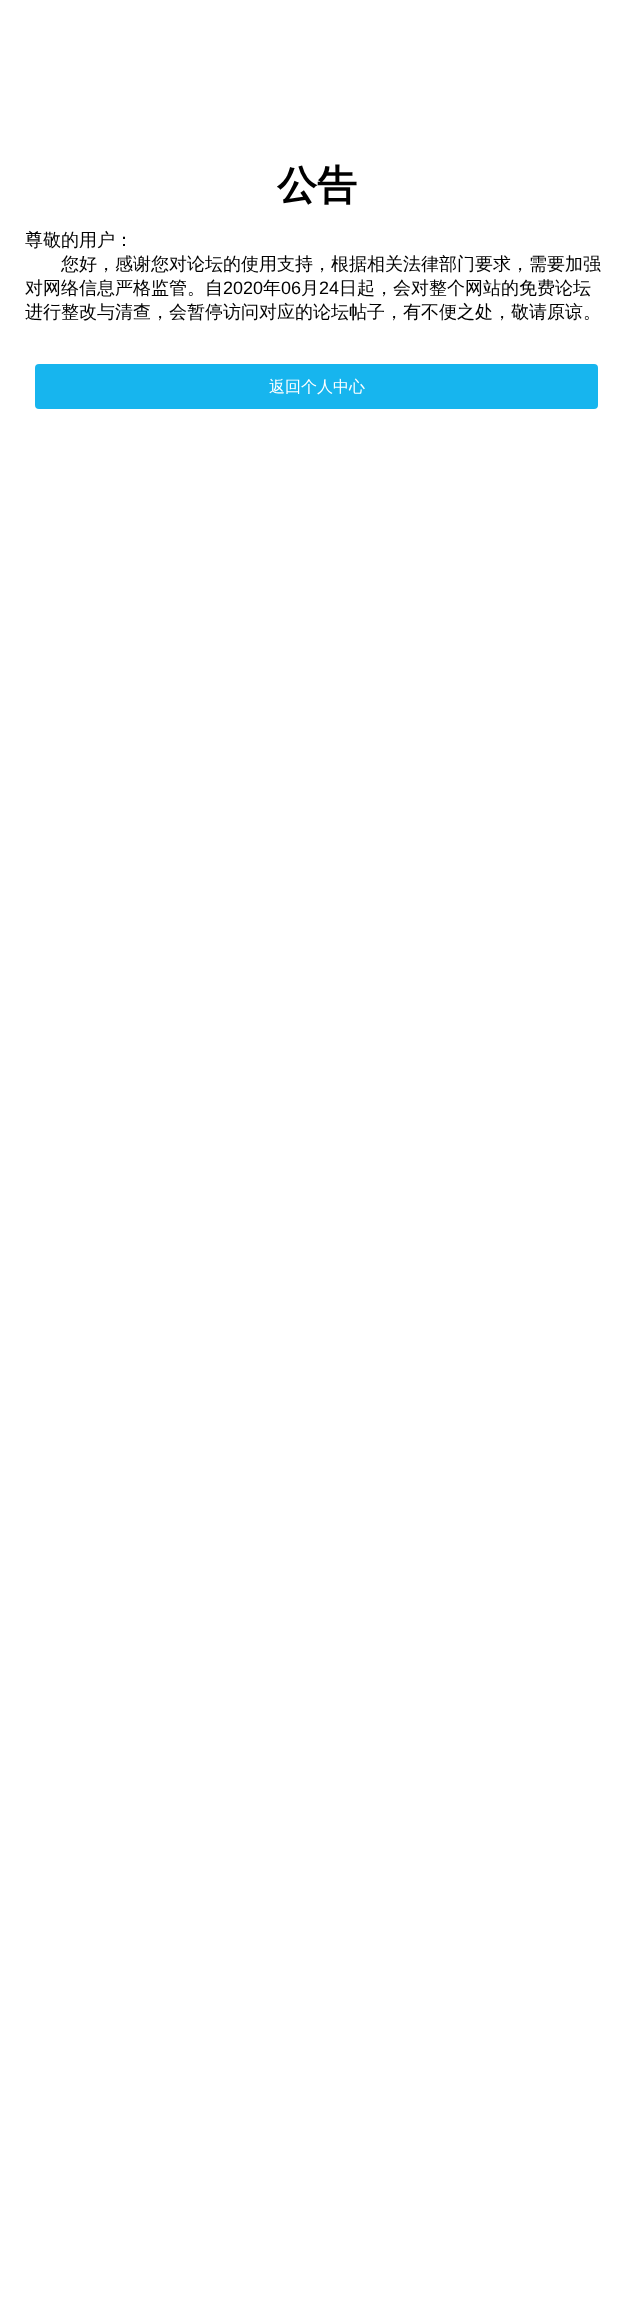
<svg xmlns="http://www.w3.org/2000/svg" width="633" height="2313">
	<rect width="100%" height="100%" fill="#FFFFFF" />
	<text x="277" y="199" font-family="WenQuanYi Zen Hei" font-size="40" font-weight="700" fill="#000000">公告</text>
	<g font-family="WenQuanYi Zen Hei" font-size="18" font-weight="500" fill="#000000">
		<text x="25" y="246">尊敬的用户：</text>
		<text x="61" y="270">您好，感谢您对论坛的使用支持，根据相关法律部门要求，需要加强</text>
		<text x="25" y="294">对网络信息严格监管。自</text>
	</g>
	<text x="223" y="294" font-family="Liberation Sans" font-size="18" fill="#000000">2020</text>
	<text x="263" y="294" font-family="WenQuanYi Zen Hei" font-size="18" font-weight="500" fill="#000000">年</text>
	<text x="281" y="294" font-family="Liberation Sans" font-size="18" fill="#000000">06</text>
	<text x="301" y="294" font-family="WenQuanYi Zen Hei" font-size="18" font-weight="500" fill="#000000">月</text>
	<text x="319" y="294" font-family="Liberation Sans" font-size="18" fill="#000000">24</text>
	<g font-family="WenQuanYi Zen Hei" font-size="18" font-weight="500" fill="#000000">
		<text x="339" y="294">日起，会对整个网站的免费论坛</text>
		<text x="25" y="318">进行整改与清查，会暂停访问对应的论坛帖子，有不便之处，敬请原谅。</text>
	</g>
	<rect x="35" y="364" width="563" height="45" rx="4" fill="#17B5EE" />
	<text x="269" y="392" font-family="WenQuanYi Zen Hei" font-size="16" font-weight="500" fill="#FFFFFF">返回个人中心</text>
</svg>
